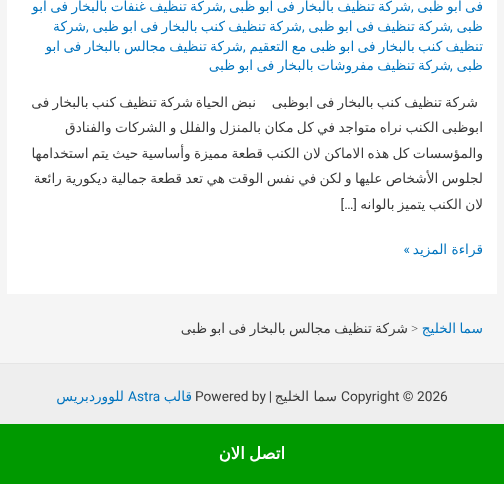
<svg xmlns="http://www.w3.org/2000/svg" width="504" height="484">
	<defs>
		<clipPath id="clip1"><rect x="21" y="0" width="462" height="274" /></clipPath>
	</defs>
	<rect width="100%" height="100%" fill="#F5F5F5" />
	<rect x="7" y="0" width="490" height="294" fill="#FFFFFF" />
	<g clip-path="url(#clip1)">
		<text x="483" y="11" word-spacing="-1" font-family="DejaVu Sans" font-size="13.7" direction="rtl" fill="#0274BE">فى ابو ظبى</text>
	</g>
	<text x="411" y="11" font-family="Roboto" font-size="13.7" fill="#0274BE">,</text>
	<text x="411" y="11" word-spacing="-1" font-family="DejaVu Sans" font-size="13.7" direction="rtl" fill="#0274BE">شركة تنظيف بالبخار فى ابو ظبى</text>
	<text x="223" y="11" font-family="Roboto" font-size="13.7" fill="#0274BE">,</text>
	<g font-family="DejaVu Sans" font-size="13.7" direction="rtl" fill="#0274BE">
		<text x="223" y="11" word-spacing="-1">شركة تنظيف غنفات بالبخار فى ابو</text>
		<text x="483" y="31">ظبى</text>
	</g>
	<text x="450" y="31" font-family="Roboto" font-size="13.7" fill="#0274BE">,</text>
	<text x="451" y="31" word-spacing="-1" font-family="DejaVu Sans" font-size="13.7" direction="rtl" fill="#0274BE">شركة تنظيف فى ابو ظبى</text>
	<text x="302" y="31" font-family="Roboto" font-size="13.7" fill="#0274BE">,</text>
	<text x="302" y="31" word-spacing="-1" font-family="DejaVu Sans" font-size="13.7" direction="rtl" fill="#0274BE">شركة تنظيف كنب بالبخار فى ابو ظبى</text>
	<text x="86" y="31" font-family="Roboto" font-size="13.7" fill="#0274BE">,</text>
	<text x="86" y="31" font-family="DejaVu Sans" font-size="13.7" direction="rtl" fill="#0274BE">شركة</text>
	<g clip-path="url(#clip1)">
		<text x="483" y="51" word-spacing="-1" font-family="DejaVu Sans" font-size="13.7" direction="rtl" fill="#0274BE">تنظيف كنب بالبخار فى ابو ظبى مع التعقيم</text>
	</g>
	<text x="243" y="51" font-family="Roboto" font-size="13.7" fill="#0274BE">,</text>
	<g font-family="DejaVu Sans" font-size="13.7" direction="rtl" fill="#0274BE">
		<text x="243" y="51" word-spacing="-1">شركة تنظيف مجالس بالبخار فى ابو</text>
		<text x="483" y="70">ظبى</text>
	</g>
	<text x="450" y="70" font-family="Roboto" font-size="13.7" fill="#0274BE">,</text>
	<text x="451" y="70" word-spacing="-1" font-family="DejaVu Sans" font-size="13.7" direction="rtl" fill="#0274BE">شركة تنظيف مفروشات بالبخار فى ابو ظبى</text>
	<g font-family="DejaVu Sans" font-size="13.7" direction="rtl" fill="#3A3A3A">
		<text x="478" y="107" word-spacing="-1">شركة تنظيف كنب بالبخار فى ابوظبى</text>
		<text x="256" y="107" word-spacing="-1">نبض الحياة</text>
		<text x="193" y="107" word-spacing="-1">شركة تنظيف كنب بالبخار فى</text>
	</g>
	<g clip-path="url(#clip1)">
		<g font-family="DejaVu Sans" font-size="13.7" direction="rtl" fill="#3A3A3A">
			<text x="483" y="132" word-spacing="-1">ابوظبى الكنب نراه متواجد في كل مكان بالمنزل والفلل و الشركات والفنادق</text>
			<text x="483" y="158" word-spacing="-1">والمؤسسات كل هذه الاماكن لان الكنب قطعة مميزة وأساسية حيث يتم استخدامها</text>
			<text x="483" y="183" word-spacing="-1">لجلوس الأشخاص عليها و لكن في نفس الوقت هي تعد قطعة جمالية ديكورية رائعة</text>
			<text x="483" y="209" word-spacing="-1">لان الكنب يتميز بالوانه</text>
		</g>
	</g>
	<text x="357" y="209" font-family="Roboto" font-size="13.7" direction="rtl" fill="#3A3A3A">[…]</text>
	<text x="483" y="254" font-family="DejaVu Sans" font-size="13.7" direction="rtl" fill="#0274BE">قراءة المزيد</text>
	<text x="410" y="254" font-family="Roboto" font-size="13.7" direction="rtl" fill="#0274BE">»</text>
	<text x="483" y="333" word-spacing="-1" font-family="DejaVu Sans" font-size="13.7" direction="rtl" fill="#0274BE">سما الخليج</text>
	<text x="411" y="333" font-family="Roboto" font-size="13.7" font-weight="200" fill="#3A3A3A">&gt;</text>
	<text x="408" y="333" word-spacing="-1" font-family="DejaVu Sans" font-size="13.7" direction="rtl" fill="#3A3A3A">شركة تنظيف مجالس بالبخار فى ابو ظبى</text>
	<rect x="0" y="364" width="504" height="60" fill="#EEEEEE" />
	<rect x="0" y="363" width="504" height="1" fill="#E5E5E5" />
	<text x="341" y="401" font-family="Roboto" font-size="13.7" fill="#3A3A3A">Copyright © 2026</text>
	<text x="337" y="401" font-family="DejaVu Sans" font-size="13.7" direction="rtl" fill="#3A3A3A">سما الخليج</text>
	<text x="272" y="401" font-family="Roboto" font-size="13.7" direction="rtl" fill="#3A3A3A">|</text>
	<text x="195" y="401" font-family="Roboto" font-size="13.7" fill="#3A3A3A">Powered by</text>
	<text x="192" y="401" font-family="DejaVu Sans" font-size="13.7" direction="rtl" fill="#0274BE">قالب</text>
	<text x="128" y="401" font-family="Roboto" font-size="13.7" fill="#0274BE">Astra</text>
	<text x="124" y="401" font-family="DejaVu Sans" font-size="13.7" direction="rtl" fill="#0274BE">للووردبريس</text>
	<rect x="0" y="424" width="504" height="60" fill="#009900" />
	<text x="285" y="459" word-spacing="-1" font-family="DejaVu Sans" font-size="16.5" font-weight="700" direction="rtl" fill="#FFFFFF">اتصل الان</text>
</svg>
